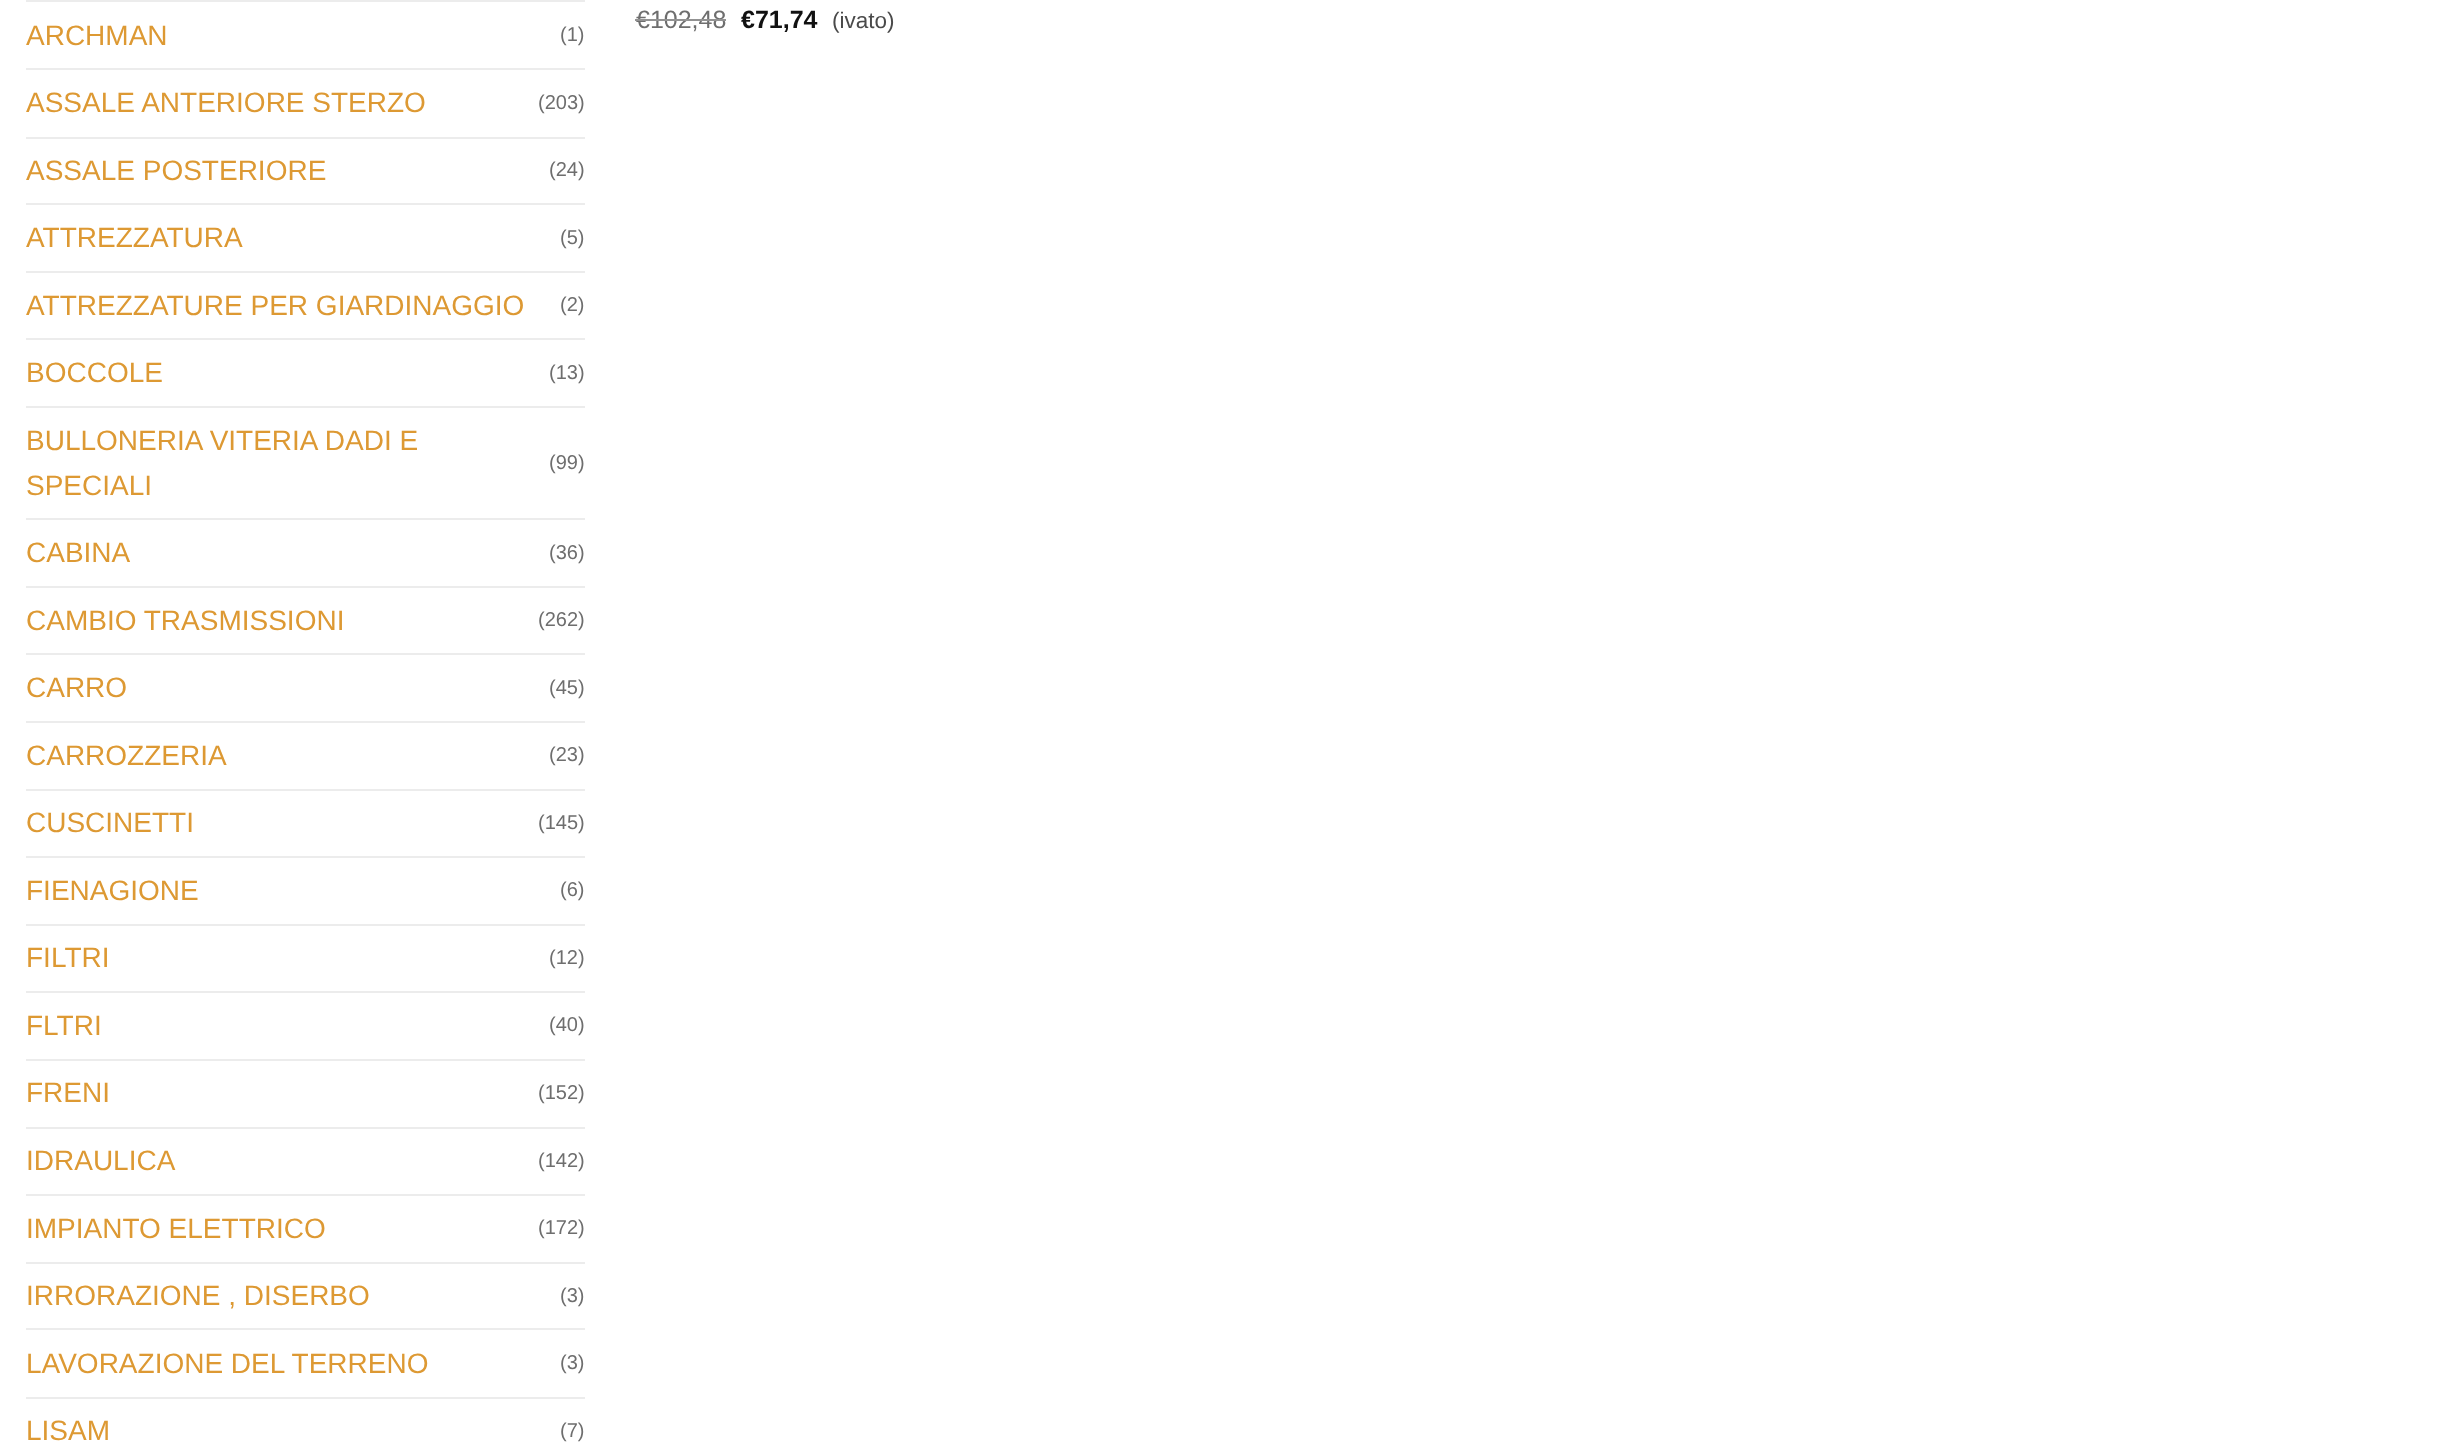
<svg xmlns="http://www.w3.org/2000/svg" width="2438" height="1445">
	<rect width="100%" height="100%" fill="#FFFFFF" />
	<text x="636" y="28" font-family="Liberation Sans" font-size="25" fill="#6E6E6E">€102,48</text>
	<rect x="635" y="19" width="91" height="2" fill="#929292" />
	<text x="741" y="28" font-family="Liberation Sans" font-size="25" font-weight="700" fill="#111111">€71,74</text>
	<text x="832" y="28" font-family="Liberation Sans" font-size="22.5" fill="#4A4A4A">(ivato)</text>
	<rect x="26" y="0" width="559" height="2" fill="#ECECEC" />
	<text x="26" y="45" font-family="Liberation Sans" font-size="28" fill="#DD9933">ARCHMAN</text>
	<text x="560" y="41" font-family="Liberation Sans" font-size="20" fill="#6E6E6E">(1)</text>
	<rect x="26" y="68" width="559" height="2" fill="#ECECEC" />
	<text x="26" y="112" font-family="Liberation Sans" font-size="28" fill="#DD9933">ASSALE ANTERIORE STERZO</text>
	<text x="538" y="109" font-family="Liberation Sans" font-size="20" fill="#6E6E6E">(203)</text>
	<rect x="26" y="137" width="559" height="2" fill="#ECECEC" />
	<text x="26" y="180" font-family="Liberation Sans" font-size="28" fill="#DD9933">ASSALE POSTERIORE</text>
	<text x="549" y="176" font-family="Liberation Sans" font-size="20" fill="#6E6E6E">(24)</text>
	<rect x="26" y="203" width="559" height="2" fill="#ECECEC" />
	<text x="26" y="247" font-family="Liberation Sans" font-size="28" fill="#DD9933">ATTREZZATURA</text>
	<text x="560" y="244" font-family="Liberation Sans" font-size="20" fill="#6E6E6E">(5)</text>
	<rect x="26" y="271" width="559" height="2" fill="#ECECEC" />
	<text x="26" y="315" font-family="Liberation Sans" font-size="28" fill="#DD9933">ATTREZZATURE PER GIARDINAGGIO</text>
	<text x="560" y="311" font-family="Liberation Sans" font-size="20" fill="#6E6E6E">(2)</text>
	<rect x="26" y="338" width="559" height="2" fill="#ECECEC" />
	<text x="26" y="382" font-family="Liberation Sans" font-size="28" fill="#DD9933">BOCCOLE</text>
	<text x="549" y="379" font-family="Liberation Sans" font-size="20" fill="#6E6E6E">(13)</text>
	<rect x="26" y="406" width="559" height="2" fill="#ECECEC" />
	<g font-family="Liberation Sans" font-size="28" fill="#DD9933">
		<text x="26" y="450">BULLONERIA VITERIA DADI E</text>
		<text x="26" y="495">SPECIALI</text>
	</g>
	<text x="549" y="469" font-family="Liberation Sans" font-size="20" fill="#6E6E6E">(99)</text>
	<rect x="26" y="518" width="559" height="2" fill="#ECECEC" />
	<text x="26" y="562" font-family="Liberation Sans" font-size="28" fill="#DD9933">CABINA</text>
	<text x="549" y="559" font-family="Liberation Sans" font-size="20" fill="#6E6E6E">(36)</text>
	<rect x="26" y="586" width="559" height="2" fill="#ECECEC" />
	<text x="26" y="630" font-family="Liberation Sans" font-size="28" fill="#DD9933">CAMBIO TRASMISSIONI</text>
	<text x="538" y="626" font-family="Liberation Sans" font-size="20" fill="#6E6E6E">(262)</text>
	<rect x="26" y="653" width="559" height="2" fill="#ECECEC" />
	<text x="26" y="697" font-family="Liberation Sans" font-size="28" fill="#DD9933">CARRO</text>
	<text x="549" y="694" font-family="Liberation Sans" font-size="20" fill="#6E6E6E">(45)</text>
	<rect x="26" y="721" width="559" height="2" fill="#ECECEC" />
	<text x="26" y="765" font-family="Liberation Sans" font-size="28" fill="#DD9933">CARROZZERIA</text>
	<text x="549" y="761" font-family="Liberation Sans" font-size="20" fill="#6E6E6E">(23)</text>
	<rect x="26" y="789" width="559" height="2" fill="#ECECEC" />
	<text x="26" y="832" font-family="Liberation Sans" font-size="28" fill="#DD9933">CUSCINETTI</text>
	<text x="538" y="829" font-family="Liberation Sans" font-size="20" fill="#6E6E6E">(145)</text>
	<rect x="26" y="856" width="559" height="2" fill="#ECECEC" />
	<text x="26" y="900" font-family="Liberation Sans" font-size="28" fill="#DD9933">FIENAGIONE</text>
	<text x="560" y="896" font-family="Liberation Sans" font-size="20" fill="#6E6E6E">(6)</text>
	<rect x="26" y="924" width="559" height="2" fill="#ECECEC" />
	<text x="26" y="967" font-family="Liberation Sans" font-size="28" fill="#DD9933">FILTRI</text>
	<text x="549" y="964" font-family="Liberation Sans" font-size="20" fill="#6E6E6E">(12)</text>
	<rect x="26" y="991" width="559" height="2" fill="#ECECEC" />
	<text x="26" y="1035" font-family="Liberation Sans" font-size="28" fill="#DD9933">FLTRI</text>
	<text x="549" y="1031" font-family="Liberation Sans" font-size="20" fill="#6E6E6E">(40)</text>
	<rect x="26" y="1059" width="559" height="2" fill="#ECECEC" />
	<text x="26" y="1102" font-family="Liberation Sans" font-size="28" fill="#DD9933">FRENI</text>
	<text x="538" y="1099" font-family="Liberation Sans" font-size="20" fill="#6E6E6E">(152)</text>
	<rect x="26" y="1127" width="559" height="2" fill="#ECECEC" />
	<text x="26" y="1170" font-family="Liberation Sans" font-size="28" fill="#DD9933">IDRAULICA</text>
	<text x="538" y="1167" font-family="Liberation Sans" font-size="20" fill="#6E6E6E">(142)</text>
	<rect x="26" y="1194" width="559" height="2" fill="#ECECEC" />
	<text x="26" y="1238" font-family="Liberation Sans" font-size="28" fill="#DD9933">IMPIANTO ELETTRICO</text>
	<text x="538" y="1234" font-family="Liberation Sans" font-size="20" fill="#6E6E6E">(172)</text>
	<rect x="26" y="1262" width="559" height="2" fill="#ECECEC" />
	<text x="26" y="1305" font-family="Liberation Sans" font-size="28" fill="#DD9933">IRRORAZIONE , DISERBO</text>
	<text x="560" y="1302" font-family="Liberation Sans" font-size="20" fill="#6E6E6E">(3)</text>
	<rect x="26" y="1328" width="559" height="2" fill="#ECECEC" />
	<text x="26" y="1373" font-family="Liberation Sans" font-size="28" fill="#DD9933">LAVORAZIONE DEL TERRENO</text>
	<text x="560" y="1369" font-family="Liberation Sans" font-size="20" fill="#6E6E6E">(3)</text>
	<rect x="26" y="1397" width="559" height="2" fill="#ECECEC" />
	<text x="26" y="1440" font-family="Liberation Sans" font-size="28" fill="#DD9933">LISAM</text>
	<text x="560" y="1437" font-family="Liberation Sans" font-size="20" fill="#6E6E6E">(7)</text>
</svg>
